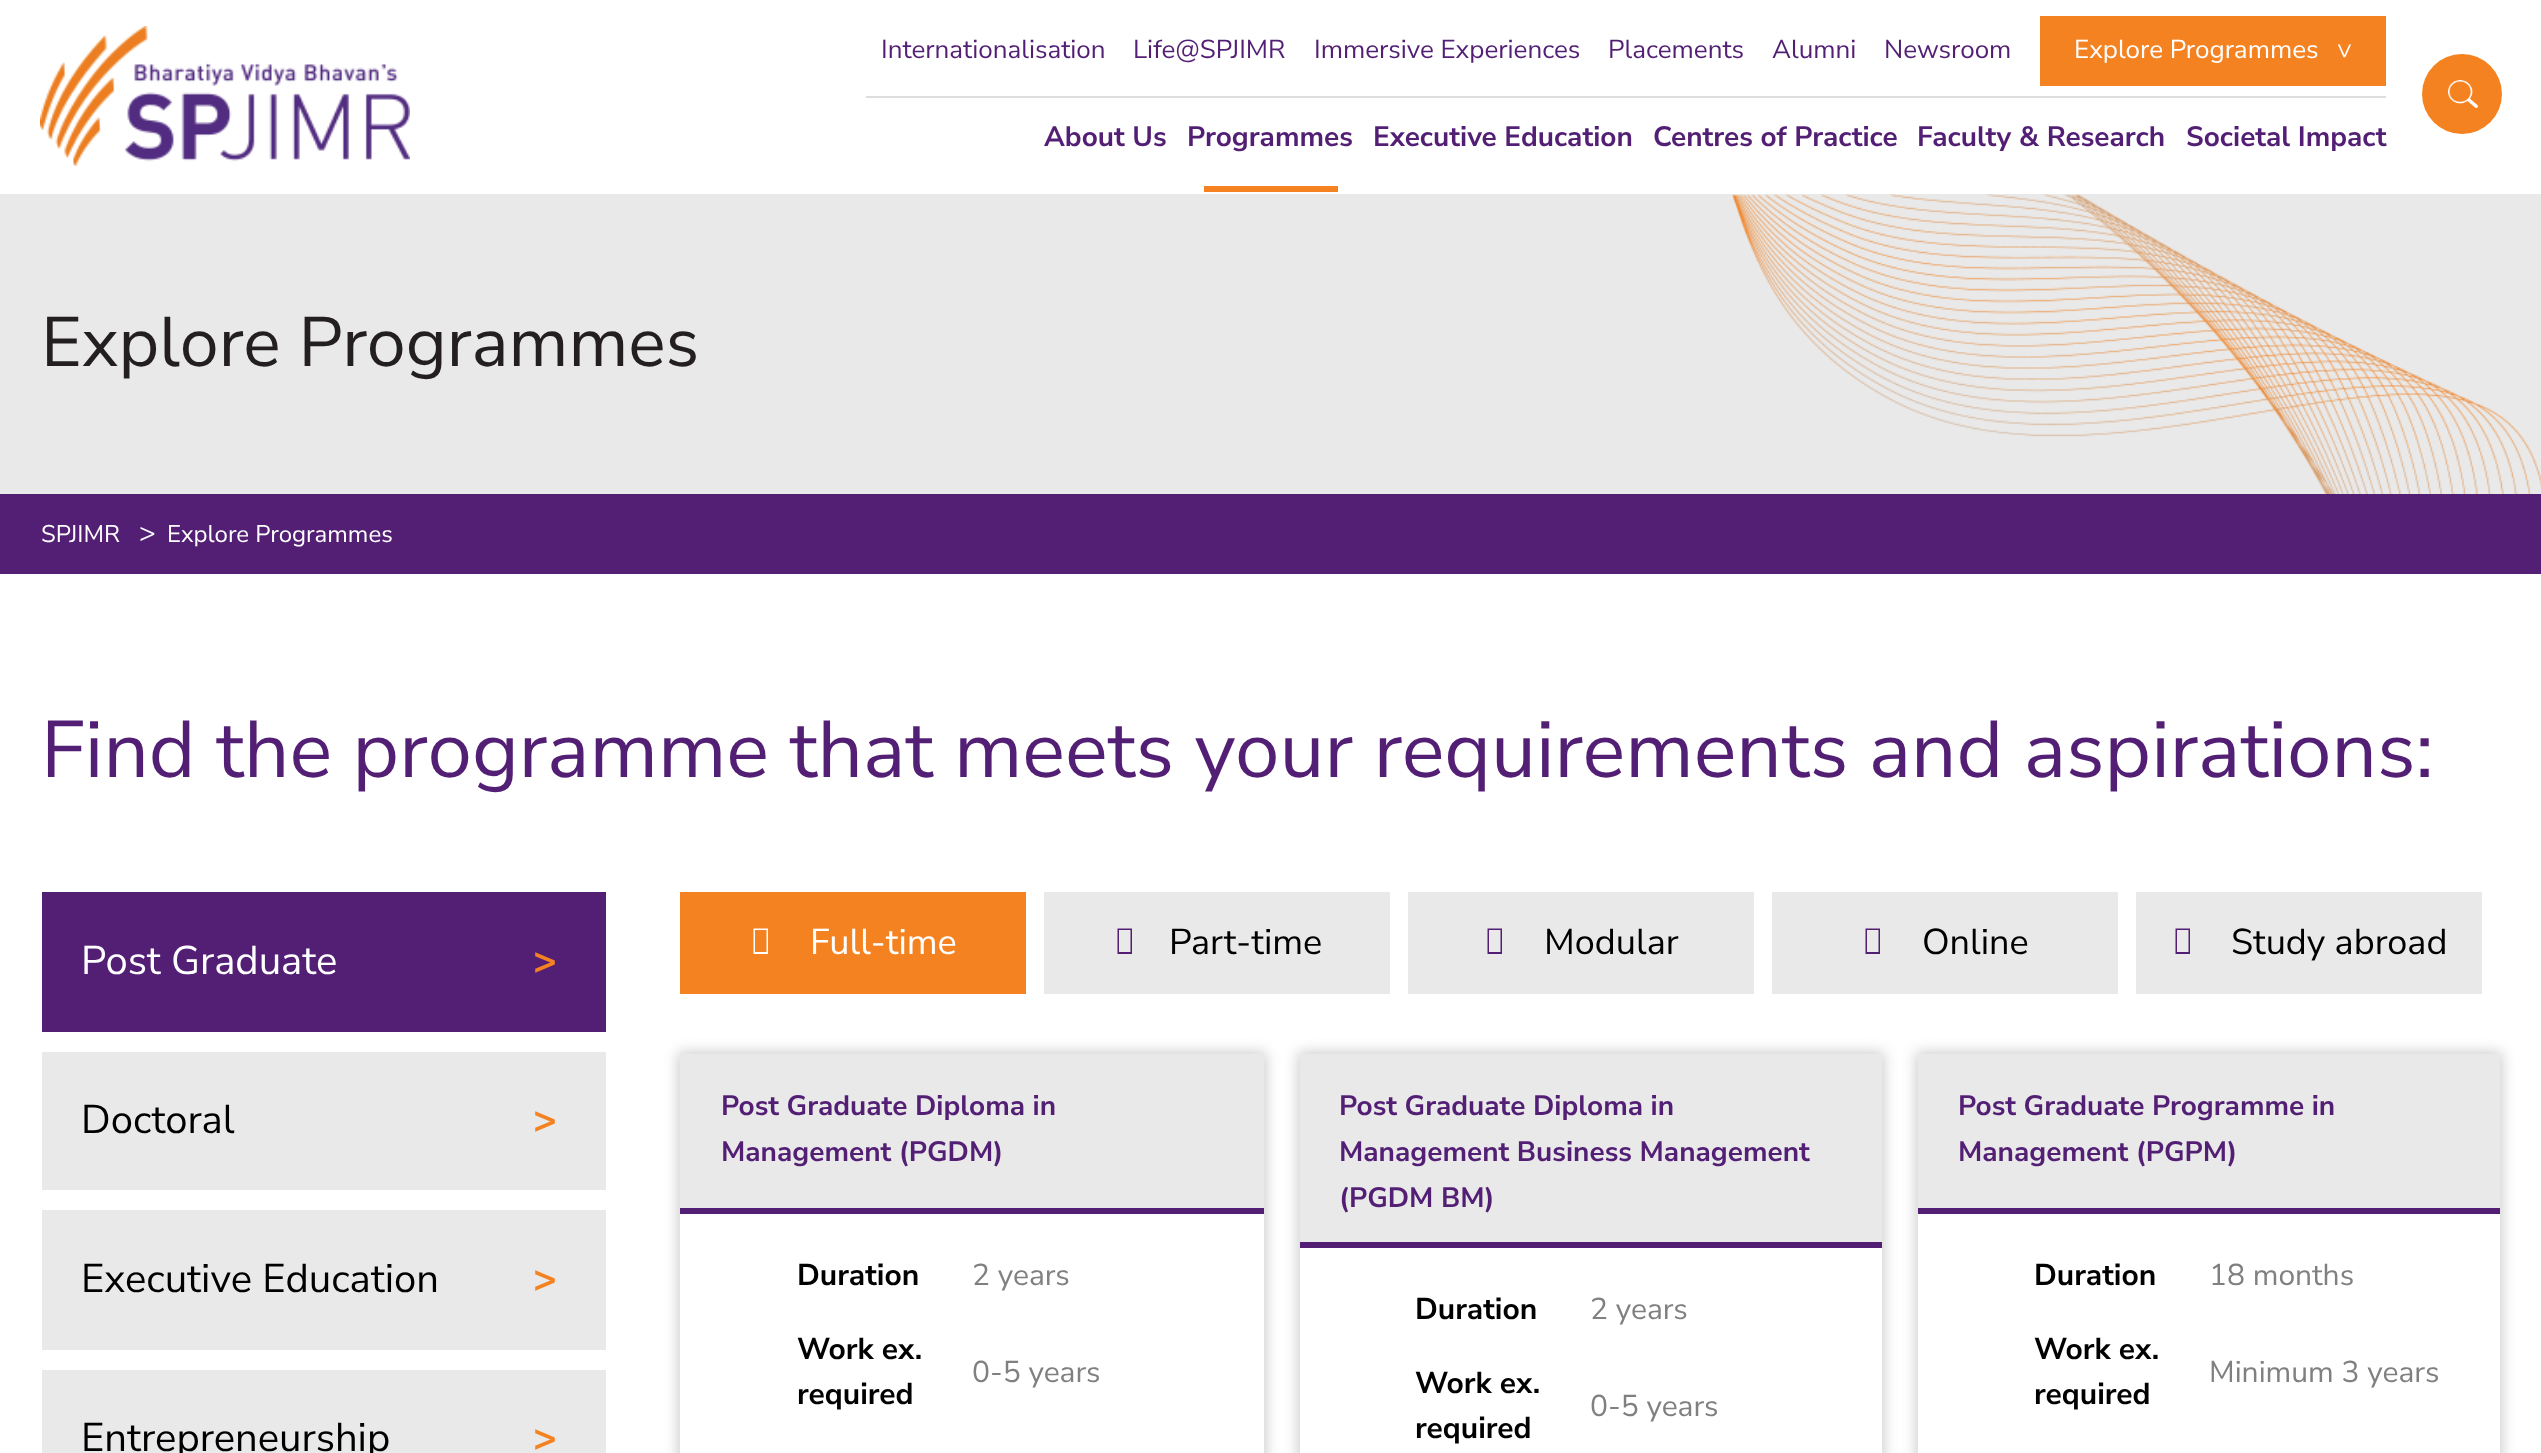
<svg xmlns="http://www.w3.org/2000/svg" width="2541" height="1453">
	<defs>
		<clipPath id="clip1"><path d="M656 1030H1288V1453H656ZM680 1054H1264V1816H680Z" clip-rule="evenodd" /></clipPath>
		<clipPath id="clip2"><path d="M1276 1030H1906V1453H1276ZM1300 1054H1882V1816H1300Z" clip-rule="evenodd" /></clipPath>
		<clipPath id="clip3"><path d="M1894 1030H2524V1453H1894ZM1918 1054H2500V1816H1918Z" clip-rule="evenodd" /></clipPath>
	</defs>
	<rect width="100%" height="100%" fill="#FFFFFF" />
	<image x="40" y="26" width="370" height="140" href="assets/img1.png" />
	<rect x="866" y="96" width="1520" height="2" fill="#DDDDDD" />
	<g font-family="Nunito Sans" font-size="26" fill="#531F75">
		<text x="881" y="58">Internationalisation</text>
		<text x="1133" y="58">Life@SPJIMR</text>
		<text x="1314" y="58">Immersive Experiences</text>
		<text x="1608" y="58">Placements</text>
		<text x="1772" y="58">Alumni</text>
		<text x="1884" y="58">Newsroom</text>
	</g>
	<rect x="2040" y="16" width="346" height="70" fill="#F58220" />
	<g font-family="Nunito Sans" font-size="26" fill="#FFFFFF">
		<text x="2074" y="58">Explore Programmes</text>
		<text x="2337" y="43" transform="rotate(90 2337 43)">&gt;</text>
	</g>
	<circle cx="2462" cy="94" r="40" fill="#F58220" />
	<image x="2448" y="80" width="30" height="28" href="assets/img2.png" />
	<g font-family="Nunito Sans" font-size="28" font-weight="700" fill="#531F75">
		<text x="1044" y="146">About Us</text>
		<text x="1187" y="146">Programmes</text>
	</g>
	<rect x="1204" y="186" width="134" height="6" fill="#F58220" />
	<g font-family="Nunito Sans" font-size="28" font-weight="700" fill="#531F75">
		<text x="1373" y="146">Executive Education</text>
		<text x="1653" y="146">Centres of Practice</text>
		<text x="1917" y="146">Faculty &amp; Research</text>
		<text x="2186" y="146">Societal Impact</text>
	</g>
	<rect x="0" y="194" width="2541" height="300" fill="#E9E9E9" />
	<text x="41" y="366" font-family="Nunito Sans" font-size="70" fill="#231F20">Explore Programmes</text>
	<image x="1732" y="194" width="809" height="300" href="assets/img3.png" />
	<rect x="0" y="494" width="2541" height="80" fill="#531F75" />
	<text x="41" y="542" font-family="Nunito Sans" font-size="24" fill="#FFFFFF">SPJIMR</text>
	<text x="139" y="542" font-family="Nunito Sans" font-size="28" fill="#FFFFFF">&gt;</text>
	<text x="167" y="542" font-family="Nunito Sans" font-size="24" fill="#FFFFFF">Explore Programmes</text>
	<text x="41" y="777" font-family="Nunito Sans" font-size="80" fill="#531F75">Find the programme that meets your requirements and aspirations:</text>
	<rect x="42" y="892" width="564" height="140" fill="#531F75" />
	<text x="81" y="974" font-family="Nunito Sans" font-size="40" fill="#FFFFFF">Post Graduate</text>
	<text x="533" y="974" font-family="Nunito Sans" font-size="40" font-weight="700" fill="#F58220">&gt;</text>
	<rect x="42" y="1052" width="564" height="138" fill="#E9E9E9" />
	<text x="81" y="1133" font-family="Nunito Sans" font-size="40" fill="#000000">Doctoral</text>
	<text x="533" y="1133" font-family="Nunito Sans" font-size="40" font-weight="700" fill="#F58220">&gt;</text>
	<rect x="42" y="1210" width="564" height="140" fill="#E9E9E9" />
	<text x="81" y="1292" font-family="Nunito Sans" font-size="40" fill="#000000">Executive Education</text>
	<text x="533" y="1292" font-family="Nunito Sans" font-size="40" font-weight="700" fill="#F58220">&gt;</text>
	<rect x="42" y="1370" width="564" height="83" fill="#E9E9E9" />
	<text x="81" y="1451" font-family="Nunito Sans" font-size="40" fill="#000000">Entrepreneurship</text>
	<text x="533" y="1451" font-family="Nunito Sans" font-size="40" font-weight="700" fill="#F58220">&gt;</text>
	<rect x="680" y="892" width="346" height="102" fill="#F58220" />
	<path d="M753.5 954V928.5H768V954ZM755 952H766.5V930H755Z" fill="#FFFFFF" />
	<text x="810" y="954" font-family="Nunito Sans" font-size="36" fill="#FFFFFF">Full-time</text>
	<rect x="1044" y="892" width="346" height="102" fill="#E9E9E9" />
	<path d="M1117.5 954V928.5H1132V954ZM1119 952H1130.5V930H1119Z" fill="#531F75" />
	<text x="1169" y="954" font-family="Nunito Sans" font-size="36" fill="#000000">Part-time</text>
	<rect x="1408" y="892" width="346" height="102" fill="#E9E9E9" />
	<path d="M1487.5 954V928.5H1502V954ZM1489 952H1500.5V930H1489Z" fill="#531F75" />
	<text x="1544" y="954" font-family="Nunito Sans" font-size="36" fill="#000000">Modular</text>
	<rect x="1772" y="892" width="346" height="102" fill="#E9E9E9" />
	<path d="M1865.5 954V928.5H1880V954ZM1867 952H1878.5V930H1867Z" fill="#531F75" />
	<text x="1922" y="954" font-family="Nunito Sans" font-size="36" fill="#000000">Online</text>
	<rect x="2136" y="892" width="346" height="102" fill="#E9E9E9" />
	<path d="M2175.5 954V928.5H2190V954ZM2177 952H2188.5V930H2177Z" fill="#531F75" />
	<text x="2231" y="954" font-family="Nunito Sans" font-size="36" fill="#000000">Study abroad</text>
	<g clip-path="url(#clip1)">
		<rect x="678" y="1052" width="588" height="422" fill="#CCCCCC" filter="blur(7px)" />
	</g>
	<rect x="680" y="1054" width="584" height="154" fill="#E9E9E9" />
	<rect x="680" y="1208" width="584" height="6" fill="#531F75" />
	<g font-family="Nunito Sans" font-size="28" font-weight="700" fill="#531F75">
		<text x="721" y="1115">Post Graduate Diploma in</text>
		<text x="721" y="1161">Management (PGDM)</text>
	</g>
	<text x="797" y="1285" font-family="Nunito Sans" font-size="30" font-weight="700" fill="#000000">Duration</text>
	<text x="972" y="1285" font-family="Nunito Sans" font-size="30" fill="#808080">2 years</text>
	<g font-family="Nunito Sans" font-size="30" font-weight="700" fill="#000000">
		<text x="797" y="1359">Work ex.</text>
		<text x="797" y="1404">required</text>
	</g>
	<text x="972" y="1382" font-family="Nunito Sans" font-size="30" fill="#808080">0-5 years</text>
	<g clip-path="url(#clip2)">
		<rect x="1298" y="1052" width="586" height="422" fill="#CCCCCC" filter="blur(7px)" />
	</g>
	<rect x="1300" y="1054" width="582" height="188" fill="#E9E9E9" />
	<rect x="1300" y="1242" width="582" height="6" fill="#531F75" />
	<g font-family="Nunito Sans" font-size="28" font-weight="700" fill="#531F75">
		<text x="1339" y="1115">Post Graduate Diploma in</text>
		<text x="1339" y="1161">Management Business Management</text>
		<text x="1339" y="1207">(PGDM BM)</text>
	</g>
	<text x="1415" y="1319" font-family="Nunito Sans" font-size="30" font-weight="700" fill="#000000">Duration</text>
	<text x="1590" y="1319" font-family="Nunito Sans" font-size="30" fill="#808080">2 years</text>
	<g font-family="Nunito Sans" font-size="30" font-weight="700" fill="#000000">
		<text x="1415" y="1393">Work ex.</text>
		<text x="1415" y="1438">required</text>
	</g>
	<text x="1590" y="1416" font-family="Nunito Sans" font-size="30" fill="#808080">0-5 years</text>
	<g clip-path="url(#clip3)">
		<rect x="1916" y="1052" width="586" height="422" fill="#CCCCCC" filter="blur(7px)" />
	</g>
	<rect x="1918" y="1054" width="582" height="154" fill="#E9E9E9" />
	<rect x="1918" y="1208" width="582" height="6" fill="#531F75" />
	<g font-family="Nunito Sans" font-size="28" font-weight="700" fill="#531F75">
		<text x="1958" y="1115">Post Graduate Programme in</text>
		<text x="1958" y="1161">Management (PGPM)</text>
	</g>
	<text x="2034" y="1285" font-family="Nunito Sans" font-size="30" font-weight="700" fill="#000000">Duration</text>
	<text x="2209" y="1285" font-family="Nunito Sans" font-size="30" fill="#808080">18 months</text>
	<g font-family="Nunito Sans" font-size="30" font-weight="700" fill="#000000">
		<text x="2034" y="1359">Work ex.</text>
		<text x="2034" y="1404">required</text>
	</g>
	<text x="2209" y="1382" font-family="Nunito Sans" font-size="30" fill="#808080">Minimum 3 years</text>
</svg>
